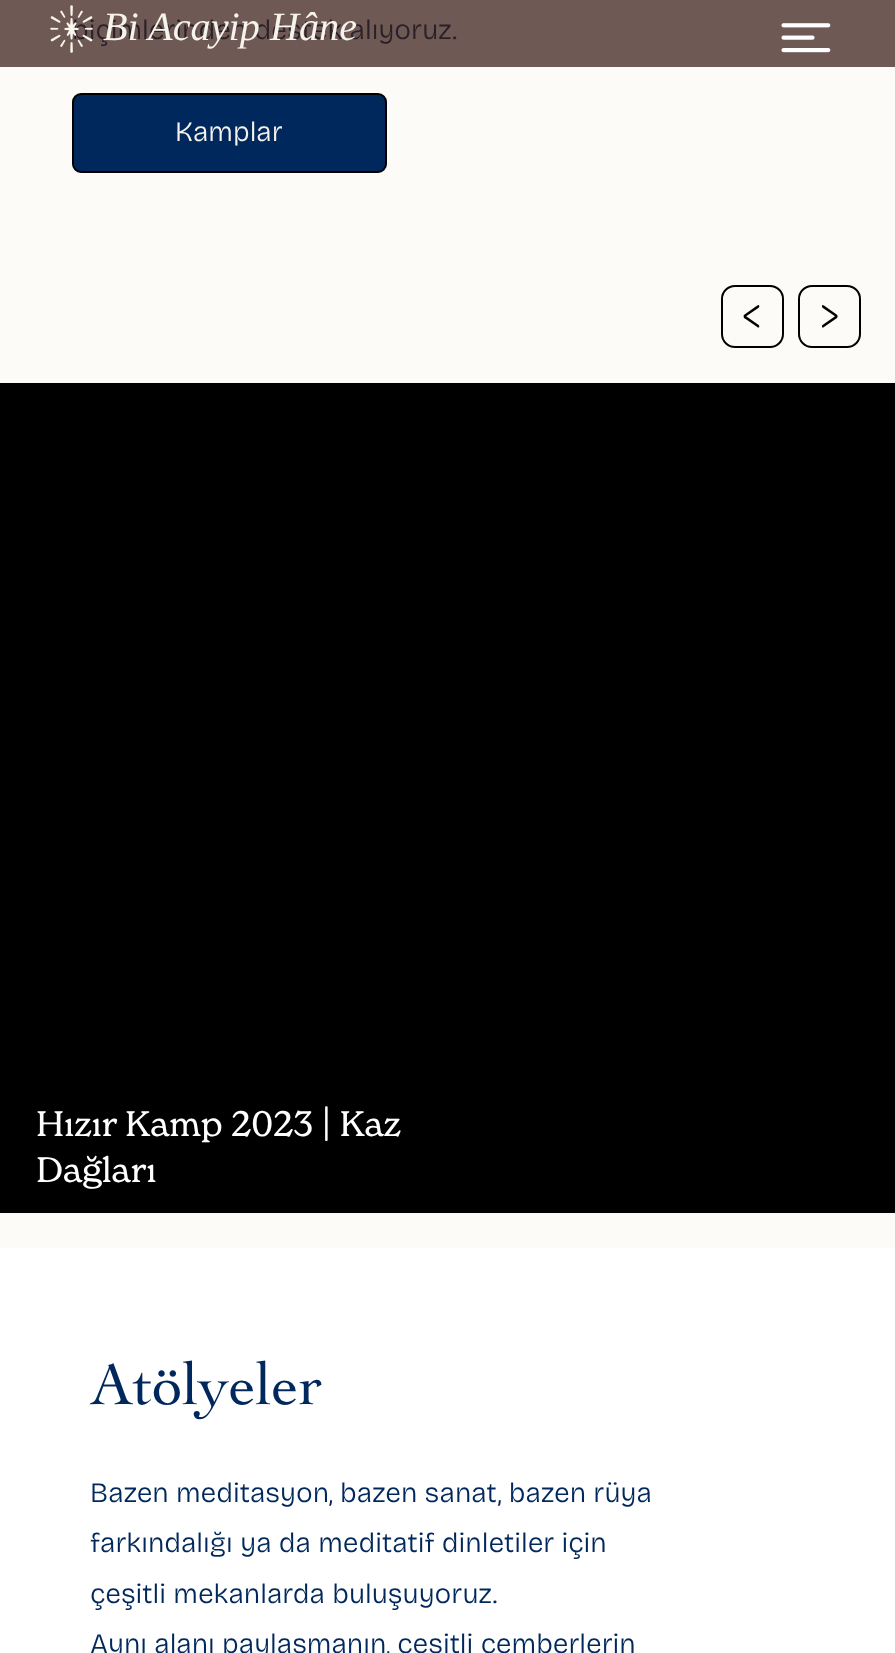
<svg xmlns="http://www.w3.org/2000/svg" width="895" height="1653">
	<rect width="100%" height="100%" fill="#FFFFFF" />
	<rect x="0" y="0" width="895" height="67" fill="#6E5954" />
	<text x="72" y="39" font-family="Bricolage Grotesque" font-size="28" font-weight="300" fill="#29202A">biçimlerinden destek alıyoruz.</text>
	<image x="50" y="5" width="43" height="48" href="assets/img1.png" />
	<text x="103" y="40" font-family="Liberation Serif" font-size="40.25" font-style="italic" fill="#F5F3EB">Bi Acayip Hâne</text>
	<image x="781" y="23" width="50" height="30" href="assets/img2.png" />
	<rect x="0" y="67" width="895" height="1181" fill="#FCFBF8" />
	<rect x="73" y="94" width="313" height="78" rx="8" fill="#00285C" stroke="#000000" stroke-width="2" />
	<text x="175" y="141" font-family="Bricolage Grotesque" font-size="28" font-weight="300" fill="#F5F3EB">Kamplar</text>
	<rect x="722" y="286" width="61" height="61" rx="13" fill="none" stroke="#000000" stroke-width="2" />
	<text x="742" y="329" font-family="Rubik" font-size="42" font-weight="300" fill="#000000">&lt;</text>
	<rect x="799" y="286" width="61" height="61" rx="13" fill="none" stroke="#000000" stroke-width="2" />
	<text x="819" y="329" font-family="Rubik" font-size="42" font-weight="300" fill="#000000">&gt;</text>
	<rect x="0" y="383" width="895" height="830" fill="#000000" />
	<g font-family="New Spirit" font-size="35" fill="#FFFFFF">
		<text x="36" y="1136">Hızır Kamp 2023 | Kaz</text>
		<text x="36" y="1182">Dağları</text>
	</g>
	<text x="90" y="1404" font-family="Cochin" font-size="61" fill="#00285C">Atölyeler</text>
	<g font-family="Bricolage Grotesque" font-size="28" font-weight="300" fill="#00285C">
		<text x="90" y="1502">Bazen meditasyon, bazen sanat, bazen rüya</text>
		<text x="90" y="1552">farkındalığı ya da meditatif dinletiler için</text>
		<text x="90" y="1603">çeşitli mekanlarda buluşuyoruz.</text>
		<text x="90" y="1653">Aynı alanı paylaşmanın, çeşitli çemberlerin</text>
	</g>
</svg>
